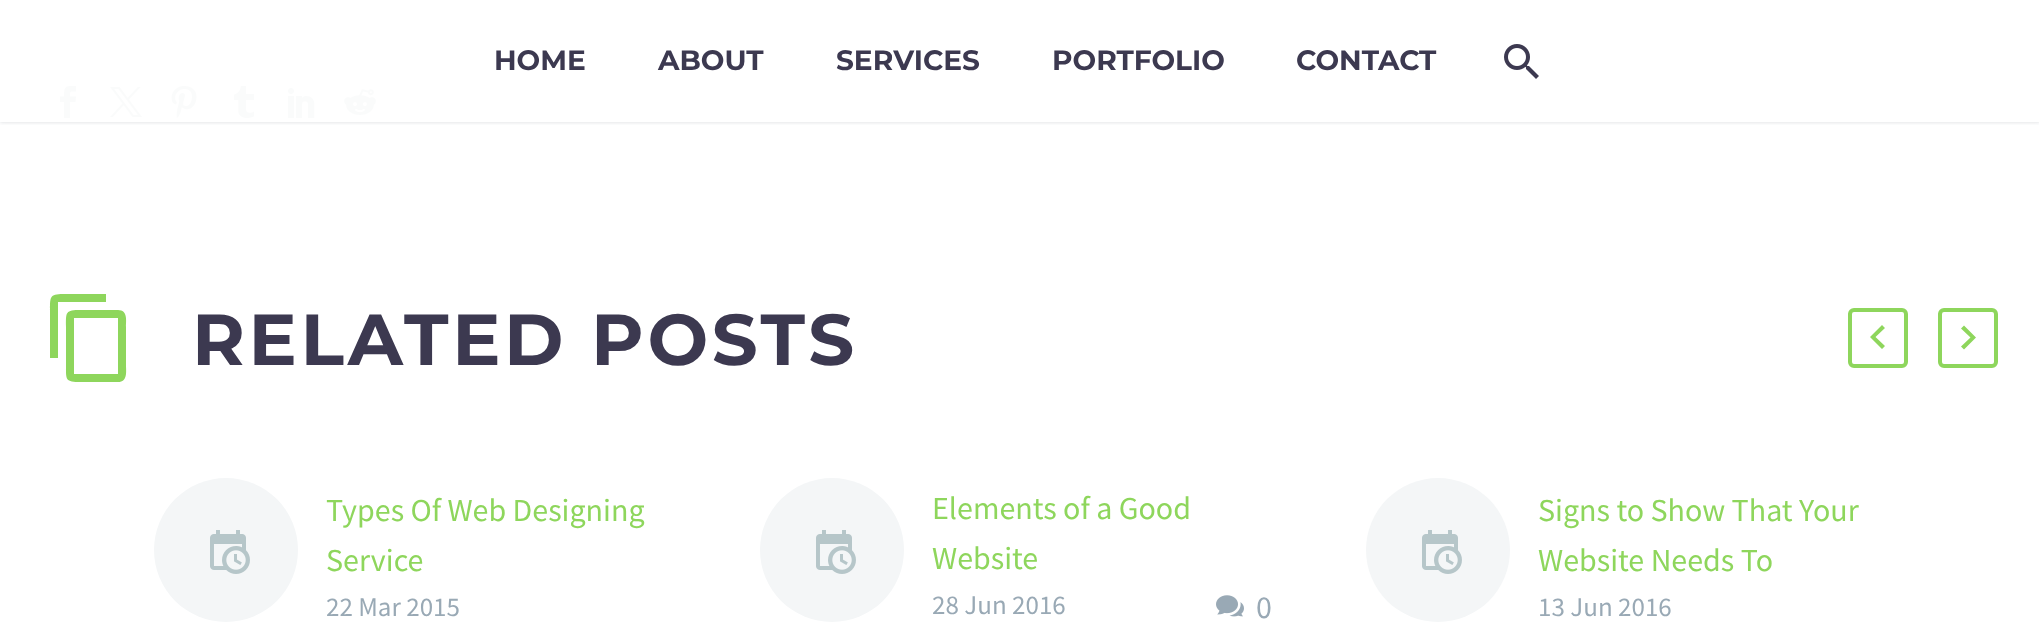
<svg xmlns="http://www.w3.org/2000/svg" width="2039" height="630">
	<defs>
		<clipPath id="clip1"><rect x="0" y="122" width="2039" height="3" /></clipPath>
	</defs>
	<rect width="100%" height="100%" fill="#FFFFFF" />
	<image x="60" y="86" width="16" height="32" href="assets/img2.png" />
	<image x="110" y="87" width="32" height="30" href="assets/img3.png" />
	<image x="171" y="86" width="26" height="32" href="assets/img4.png" />
	<image x="234" y="86" width="20" height="32" href="assets/img5.png" />
	<image x="288" y="88" width="27" height="30" href="assets/img6.png" />
	<image x="344" y="89" width="32" height="26" href="assets/img7.png" />
	<g clip-path="url(#clip1)">
		<rect x="0" y="0" width="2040" height="122" fill="#384554" fill-opacity="0.2" filter="blur(2px)" />
	</g>
	<g font-family="Montserrat" font-size="28" font-weight="700" fill="#3C3950">
		<text x="494" y="70">HOME</text>
		<text x="658" y="70">ABOUT</text>
		<text x="836" y="70">SERVICES</text>
		<text x="1052" y="70">PORTFOLIO</text>
		<text x="1296" y="70">CONTACT</text>
	</g>
	<image x="1504" y="44" width="35" height="35" href="assets/img1.png" />
	<path d="M106 294H66C50 294 50 295 50 311V358H58V302H106ZM118 310H81C65 310 66 312 66 327V365C66 380 65 382 81 382H118C128 382 126 371 126 365V327C126 321 128 310 118 310ZM118 374H74V318H118Z" fill="#8ED65C" />
	<text x="192" y="365" font-family="Montserrat" font-size="72" font-weight="700" letter-spacing="3.6" fill="#3C3950">RELATED POSTS</text>
	<rect x="1850" y="310" width="56" height="56" rx="4" fill="none" stroke="#8ED65C" stroke-width="4" />
	<path d="M1885 346L1875.5 337L1885 328L1882 325L1870 337L1882 349Z" fill="#8ED65C" />
	<rect x="1940" y="310" width="56" height="56" rx="4" fill="none" stroke="#8ED65C" stroke-width="4" />
	<path d="M1961 346.5L1970.5 337.5L1961 328.5L1964 325.5L1976 337.5L1964 349.5Z" fill="#8ED65C" />
	<circle cx="226" cy="550" r="72" fill="#F4F6F7" />
	<image x="210" y="530" width="40" height="44" href="assets/img8.png" />
	<g font-family="Source Sans Pro" font-size="32" fill="#8ED65C">
		<text x="326" y="521">Types Of Web Designing</text>
		<text x="326" y="571">Service</text>
	</g>
	<text x="326" y="616" font-family="Source Sans Pro" font-size="27" fill="#99A9B5">22 Mar 2015</text>
	<circle cx="832" cy="550" r="72" fill="#F4F6F7" />
	<image x="816" y="530" width="40" height="44" href="assets/img8.png" />
	<g font-family="Source Sans Pro" font-size="32" fill="#8ED65C">
		<text x="932" y="519">Elements of a Good</text>
		<text x="932" y="569">Website</text>
	</g>
	<text x="932" y="614" font-family="Source Sans Pro" font-size="27" fill="#99A9B5">28 Jun 2016</text>
	<image x="1216" y="595" width="28" height="22" href="assets/img9.png" />
	<text x="1256" y="618" font-family="Source Sans Pro" font-size="32" fill="#99A9B5">0</text>
	<circle cx="1438" cy="550" r="72" fill="#F4F6F7" />
	<image x="1422" y="530" width="40" height="44" href="assets/img8.png" />
	<g font-family="Source Sans Pro" font-size="32" fill="#8ED65C">
		<text x="1538" y="521">Signs to Show That Your</text>
		<text x="1538" y="571">Website Needs To</text>
	</g>
	<text x="1538" y="616" font-family="Source Sans Pro" font-size="27" fill="#99A9B5">13 Jun 2016</text>
</svg>
